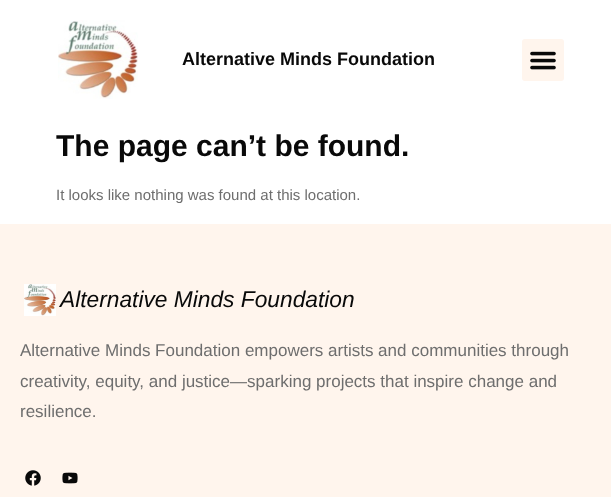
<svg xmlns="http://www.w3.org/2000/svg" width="611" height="497">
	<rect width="100%" height="100%" fill="#FFFFFF" />
	<image x="58" y="20" width="80" height="79" href="assets/img1.png" />
	<text x="182" y="65" font-family="Liberation Sans" font-size="18" font-weight="700" fill="#090909">Alternative Minds Foundation</text>
	<rect x="522" y="39" width="42" height="42" rx="3" fill="#FFF5ED" />
	<image x="530" y="51" width="26" height="19" href="assets/img2.png" />
	<text x="56" y="156" font-family="Liberation Sans" font-size="30" font-weight="700" fill="#090909">The page can’t be found.</text>
	<text x="56" y="200" font-family="Liberation Sans" font-size="15" fill="#6E6E6E">It looks like nothing was found at this location.</text>
	<rect x="0" y="224" width="611" height="273" fill="#FFF5ED" />
	<image x="24" y="284" width="32" height="32" href="assets/img3.png" />
	<text x="60" y="307" font-family="Liberation Sans" font-size="22.75" font-style="italic" fill="#090909">Alternative Minds Foundation</text>
	<g font-family="Liberation Sans" font-size="17" fill="#6E6E6E">
		<text x="20" y="356">Alternative Minds Foundation empowers artists and communities through</text>
		<text x="20" y="387">creativity, equity, and justice—sparking projects that inspire change and</text>
		<text x="20" y="417">resilience.</text>
	</g>
	<image x="25" y="470" width="16" height="16" href="assets/img4.png" />
	<image x="62" y="472" width="16" height="12" href="assets/img5.png" />
</svg>
